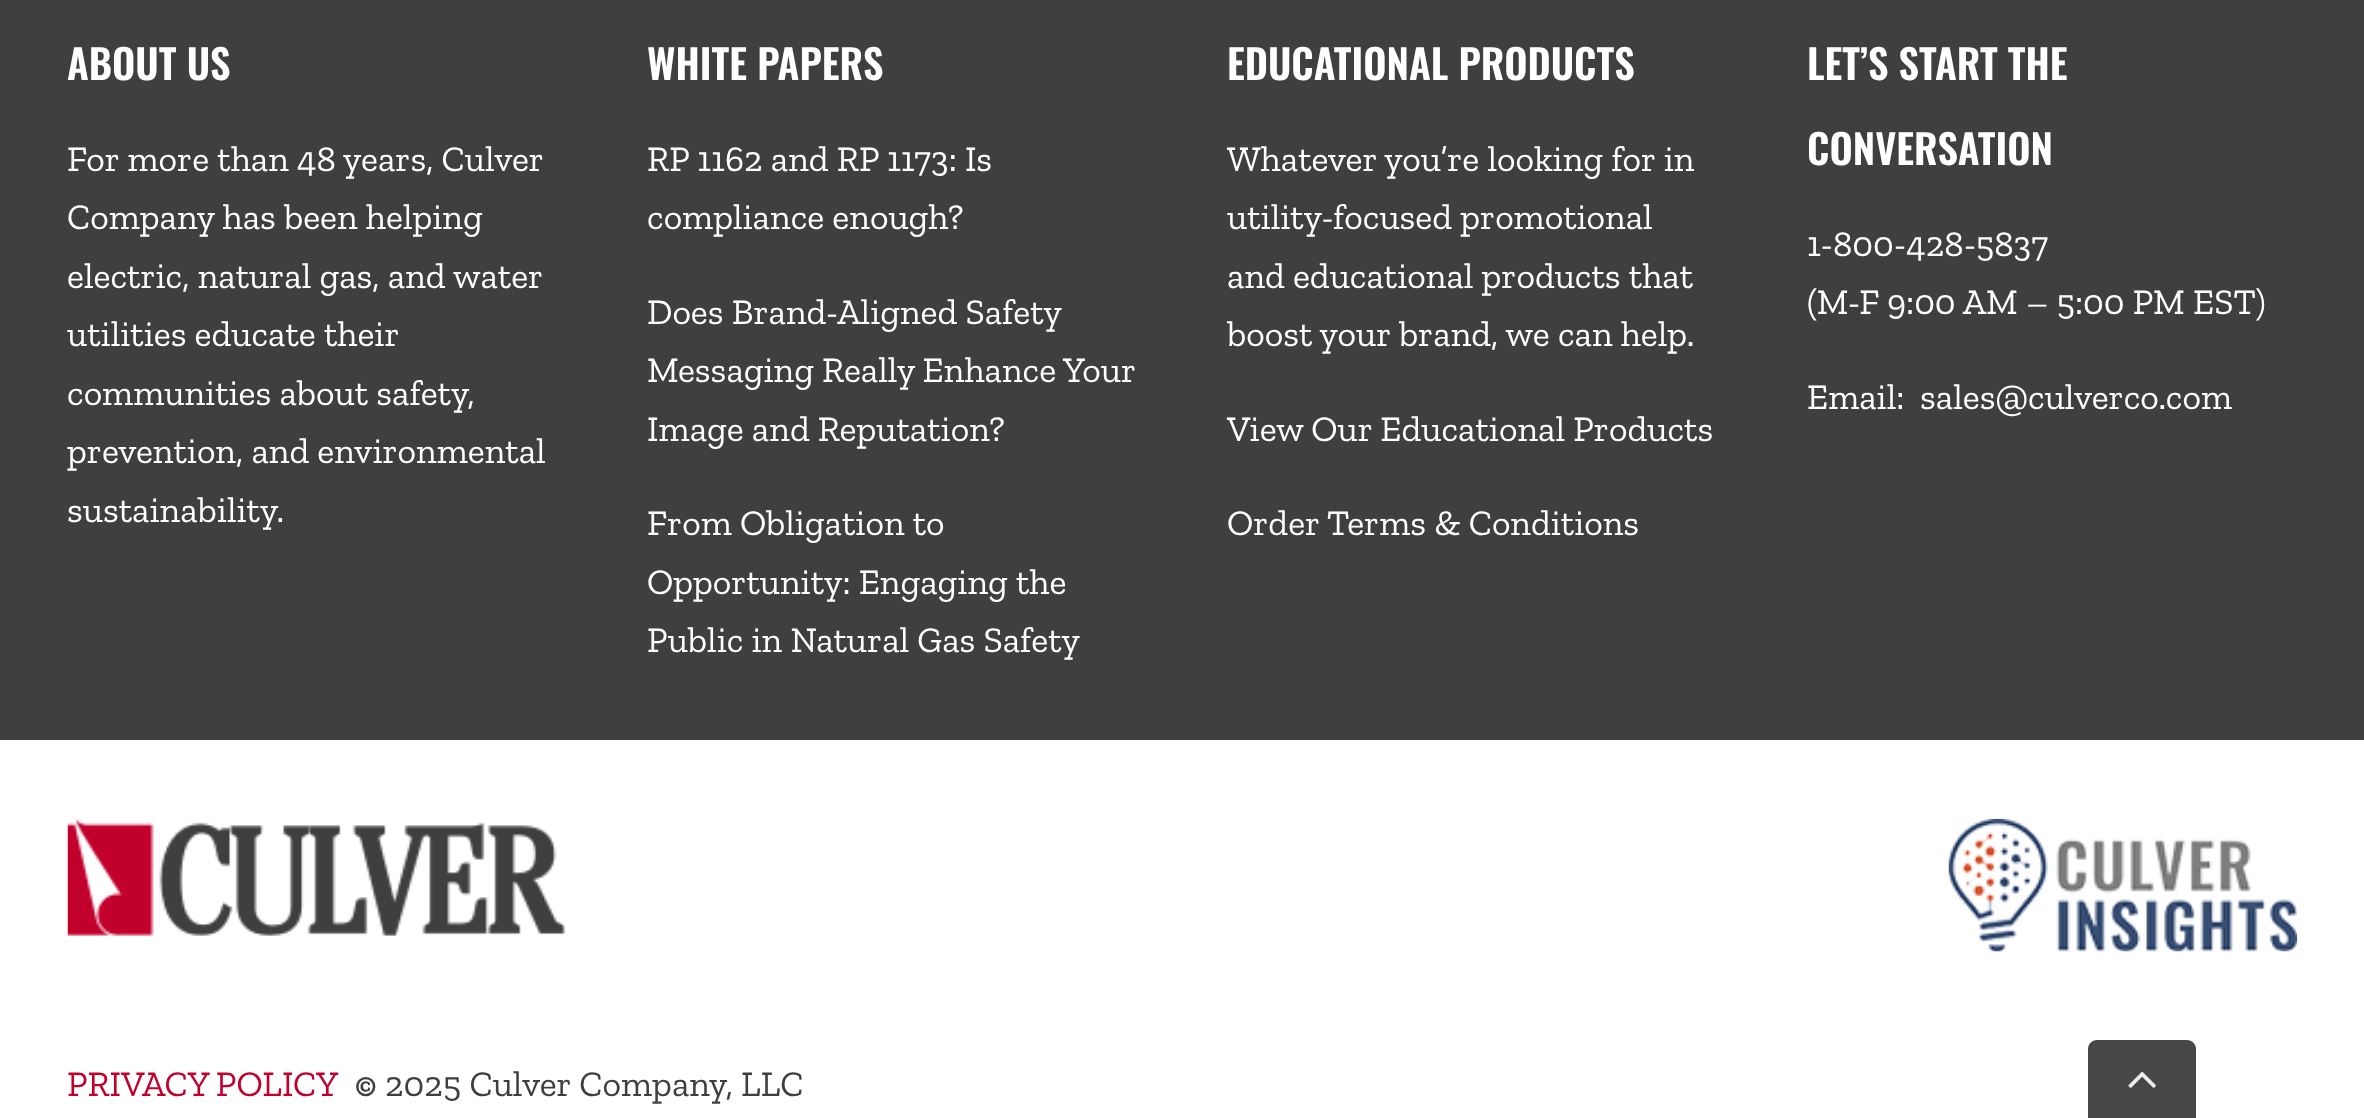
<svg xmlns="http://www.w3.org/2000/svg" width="2364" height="1118">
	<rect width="100%" height="100%" fill="#FFFFFF" />
	<rect x="0" y="0" width="2364" height="740" fill="#3F3F3F" />
	<text x="67" y="80" font-family="Oswald" font-size="40.5" font-weight="600" fill="#FFFFFF">ABOUT US</text>
	<g font-family="Zilla Slab" font-size="36" fill="#FFFFFF">
		<text x="67" y="171">For more than 48 years, Culver</text>
		<text x="67" y="229">Company has been helping</text>
		<text x="67" y="288">electric, natural gas, and water</text>
		<text x="67" y="346">utilities educate their</text>
		<text x="67" y="405">communities about safety,</text>
		<text x="67" y="463">prevention, and environmental</text>
		<text x="67" y="522">sustainability.</text>
	</g>
	<text x="647" y="80" font-family="Oswald" font-size="40.5" font-weight="600" fill="#FFFFFF">WHITE PAPERS</text>
	<g font-family="Zilla Slab" font-size="36" fill="#FFFFFF">
		<text x="647" y="171">RP 1162 and RP 1173: Is</text>
		<text x="647" y="229">compliance enough?</text>
		<text x="647" y="324">Does Brand-Aligned Safety</text>
		<text x="647" y="382">Messaging Really Enhance Your</text>
		<text x="647" y="441">Image and Reputation?</text>
		<text x="647" y="535">From Obligation to</text>
		<text x="647" y="594">Opportunity: Engaging the</text>
		<text x="647" y="652">Public in Natural Gas Safety</text>
	</g>
	<text x="1227" y="80" font-family="Oswald" font-size="40.5" font-weight="600" fill="#FFFFFF">EDUCATIONAL PRODUCTS</text>
	<g font-family="Zilla Slab" font-size="36" fill="#FFFFFF">
		<text x="1227" y="171">Whatever you’re looking for in</text>
		<text x="1227" y="229">utility-focused promotional</text>
		<text x="1227" y="288">and educational products that</text>
		<text x="1227" y="346">boost your brand, we can help.</text>
		<text x="1227" y="441">View Our Educational Products</text>
		<text x="1227" y="535">Order Terms &amp; Conditions</text>
	</g>
	<g font-family="Oswald" font-size="40.5" font-weight="600" fill="#FFFFFF">
		<text x="1807" y="80">LET’S START THE</text>
		<text x="1807" y="165">CONVERSATION</text>
	</g>
	<g font-family="Zilla Slab" font-size="36" fill="#FFFFFF">
		<text x="1807" y="256">1-800-428-5837</text>
		<text x="1807" y="314">(M-F 9:00 AM – 5:00 PM EST)</text>
		<text x="1807" y="409">Email:</text>
		<text x="1920" y="409">sales@culverco.com</text>
	</g>
	<image x="67" y="819" width="498" height="117" href="assets/img1.png" />
	<image x="1948" y="818" width="350" height="134" href="assets/img2.png" />
	<text x="67" y="1096" word-spacing="-1" font-family="Zilla Slab" font-size="36" fill="#C2002C">PRIVACY POLICY</text>
	<text x="355" y="1096" font-family="Zilla Slab" font-size="36" font-weight="700" fill="#3F3F3F">©</text>
	<text x="385" y="1096" font-family="Zilla Slab" font-size="36" fill="#3F3F3F">2025 Culver Company, LLC</text>
	<path d="M2097 1040H2187C2192 1040 2196 1044 2196 1049V1118H2088V1049C2088 1044 2092 1040 2097 1040Z" fill="#474747" />
	<image x="2128" y="1071" width="28" height="17" href="assets/img3.png" />
</svg>
